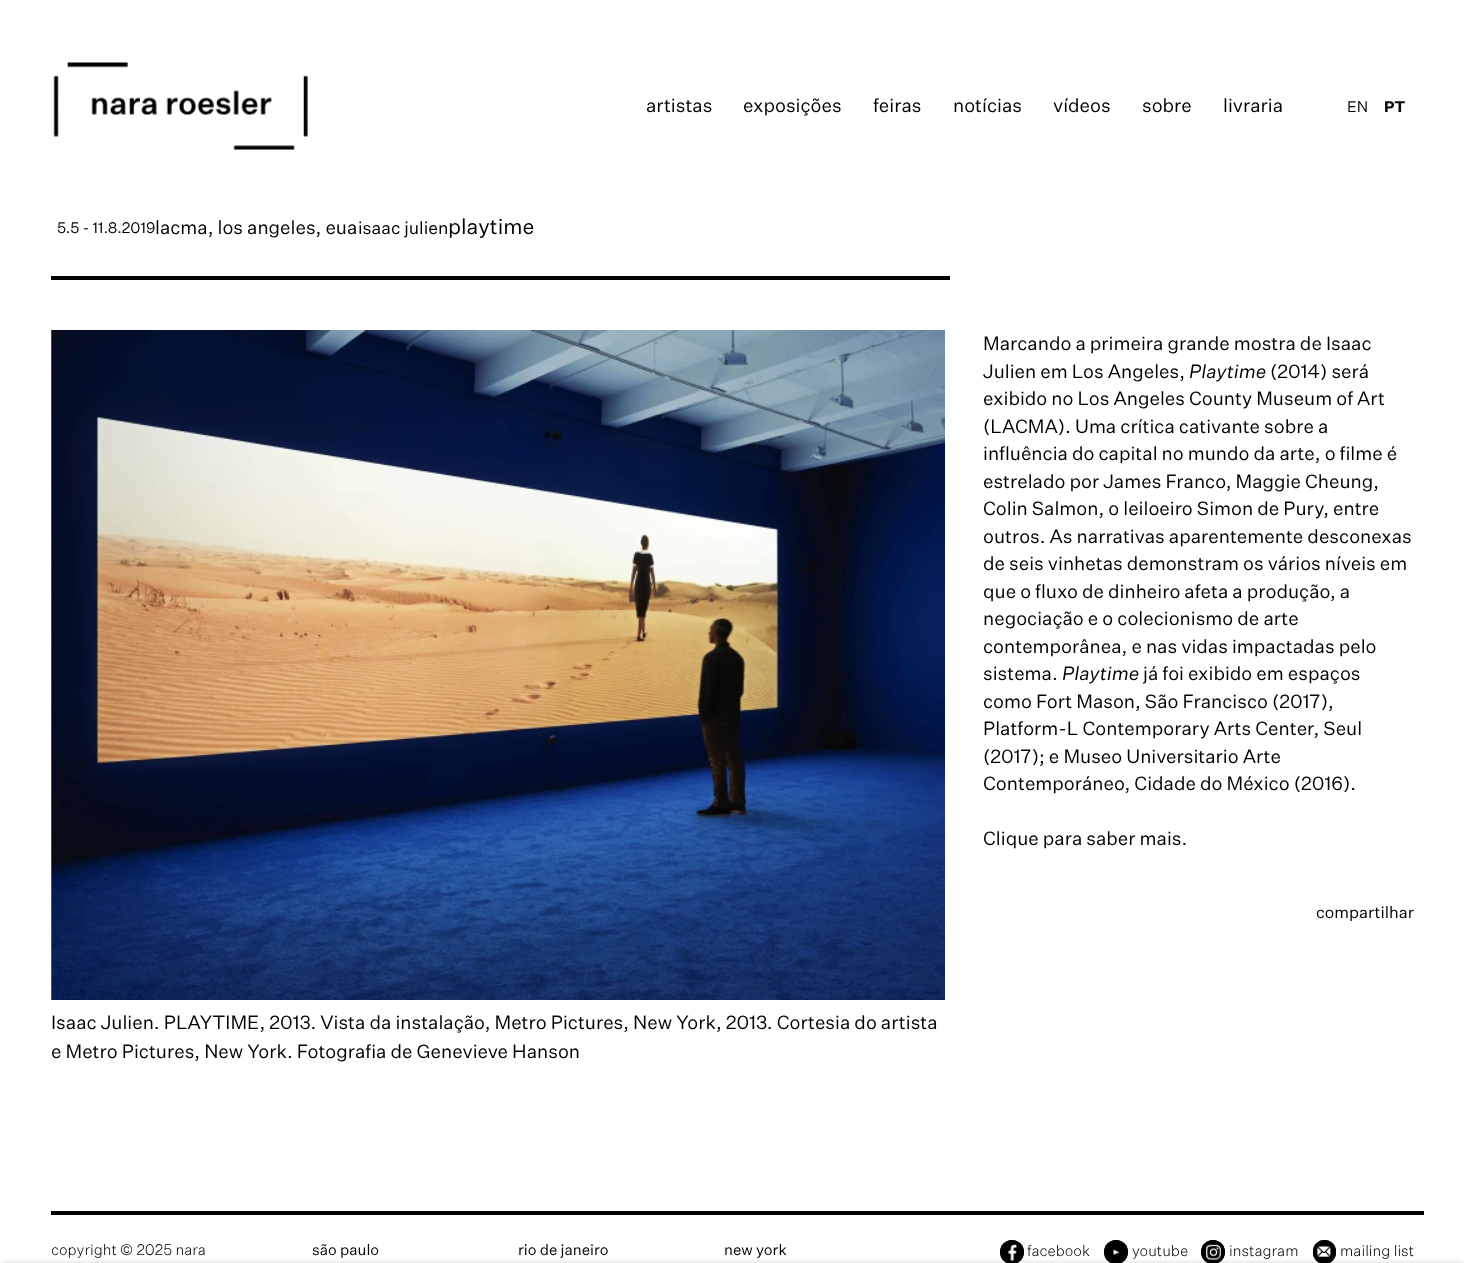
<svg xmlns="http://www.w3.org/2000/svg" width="1464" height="1263">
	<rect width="100%" height="100%" fill="#FFFFFF" />
	<image x="53" y="62" width="255" height="88" href="assets/img1.png" />
	<g font-family="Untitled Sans" font-size="18.75" fill="#000000">
		<text x="646" y="112">artistas</text>
		<text x="743" y="112">exposições</text>
		<text x="873" y="112">feiras</text>
		<text x="953" y="112">notícias</text>
		<text x="1053" y="112">vídeos</text>
		<text x="1142" y="112">sobre</text>
		<text x="1223" y="112">livraria</text>
	</g>
	<text x="1347" y="112" font-family="Untitled Sans" font-size="15" fill="#000000">EN</text>
	<text x="1384" y="112" font-family="Untitled Sans" font-size="15" font-weight="700" fill="#0A0A0A">PT</text>
	<rect x="51" y="276" width="899" height="4" fill="#000000" />
	<text x="57" y="233" font-family="Untitled Sans" font-size="15" fill="#000000">5.5 - 11.8.2019</text>
	<text x="155" y="234" font-family="Untitled Sans" font-size="18.75" fill="#000000">lacma, los angeles, eua</text>
	<text x="358" y="234" font-family="Untitled Sans" font-size="17.5" fill="#000000">isaac julien</text>
	<text x="448" y="234" font-family="Untitled Sans" font-size="21.25" fill="#000000">playtime</text>
	<g font-family="Untitled Sans" font-size="18.75" fill="#000000">
		<text x="983" y="350">Marcando a primeira grande mostra de Isaac</text>
		<text x="983" y="378">Julien em Los Angeles,</text>
	</g>
	<text x="1189" y="378" font-family="Untitled Sans" font-size="18.75" font-style="italic" fill="#000000">Playtime</text>
	<g font-family="Untitled Sans" font-size="18.75" fill="#000000">
		<text x="1270" y="378">(2014) será</text>
		<text x="983" y="405">exibido no Los Angeles County Museum of Art</text>
		<text x="983" y="433">(LACMA). Uma crítica cativante sobre a</text>
		<text x="983" y="460">influência do capital no mundo da arte, o filme é</text>
		<text x="983" y="488">estrelado por James Franco, Maggie Cheung,</text>
		<text x="983" y="515">Colin Salmon, o leiloeiro Simon de Pury, entre</text>
		<text x="983" y="543">outros. As narrativas aparentemente desconexas</text>
		<text x="983" y="570">de seis vinhetas demonstram os vários níveis em</text>
		<text x="983" y="598">que o fluxo de dinheiro afeta a produção, a</text>
		<text x="983" y="625">negociação e o colecionismo de arte</text>
		<text x="983" y="653">contemporânea, e nas vidas impactadas pelo</text>
		<text x="983" y="680">sistema.</text>
	</g>
	<text x="1062" y="680" font-family="Untitled Sans" font-size="18.75" font-style="italic" fill="#000000">Playtime</text>
	<g font-family="Untitled Sans" font-size="18.75" fill="#000000">
		<text x="1143" y="680">já foi exibido em espaços</text>
		<text x="983" y="708">como Fort Mason, São Francisco (2017),</text>
		<text x="983" y="735">Platform-L Contemporary Arts Center, Seul</text>
		<text x="983" y="763">(2017); e Museo Universitario Arte</text>
		<text x="983" y="790">Contemporáneo, Cidade do México (2016).</text>
		<text x="983" y="845">Clique para saber mais.</text>
	</g>
	<text x="1316" y="918" font-family="Untitled Sans" font-size="16.25" fill="#000000">compartilhar</text>
	<image x="51" y="330" width="894" height="670" href="assets/img2.png" />
	<g font-family="Untitled Sans" font-size="18.75" fill="#000000">
		<text x="51" y="1029">Isaac Julien. PLAYTIME, 2013. Vista da instalação, Metro Pictures, New York, 2013. Cortesia do artista</text>
		<text x="51" y="1058">e Metro Pictures, New York. Fotografia de Genevieve Hanson</text>
	</g>
	<rect x="51" y="1211" width="1373" height="4" fill="#000000" />
	<text x="51" y="1255" font-family="Untitled Sans" font-size="15" font-weight="300" fill="#000000">copyright © 2025 nara</text>
	<g font-family="Untitled Sans" font-size="15" fill="#000000">
		<text x="312" y="1255">são paulo</text>
		<text x="518" y="1255">rio de janeiro</text>
		<text x="724" y="1255">new york</text>
	</g>
	<circle cx="1012" cy="1252" r="12" fill="#000000" />
	<image x="1008" y="1244" width="10" height="17" href="assets/img3.png" />
	<circle cx="1012" cy="1252" r="10.5" fill="none" stroke="#000000" stroke-width="3" />
	<text x="1027" y="1256" font-family="Untitled Sans" font-size="15" font-weight="300" fill="#000000">facebook</text>
	<circle cx="1116" cy="1252" r="12" fill="#000000" />
	<image x="1113" y="1249" width="7" height="6" href="assets/img4.png" />
	<circle cx="1116" cy="1252" r="10.5" fill="none" stroke="#000000" stroke-width="3" />
	<text x="1132" y="1256" font-family="Untitled Sans" font-size="15" font-weight="300" fill="#000000">youtube</text>
	<circle cx="1213" cy="1252" r="12" fill="#000000" />
	<image x="1206" y="1244" width="15" height="16" href="assets/img5.png" />
	<circle cx="1213" cy="1252" r="10.5" fill="none" stroke="#000000" stroke-width="3" />
	<text x="1229" y="1256" font-family="Untitled Sans" font-size="15" font-weight="300" fill="#000000">instagram</text>
	<rect x="1313" y="1240" width="23" height="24" rx="11.5" fill="#000000" />
	<image x="1317" y="1246" width="14" height="11" href="assets/img6.png" />
	<rect x="1314.5" y="1241.5" width="20" height="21" rx="10" fill="none" stroke="#000000" stroke-width="3" />
	<text x="1340" y="1256" font-family="Untitled Sans" font-size="15" font-weight="300" fill="#000000">mailing list</text>
	<rect x="0" y="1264" width="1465" height="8" fill="#000000" fill-opacity="0.23" filter="blur(3px)" />
</svg>
